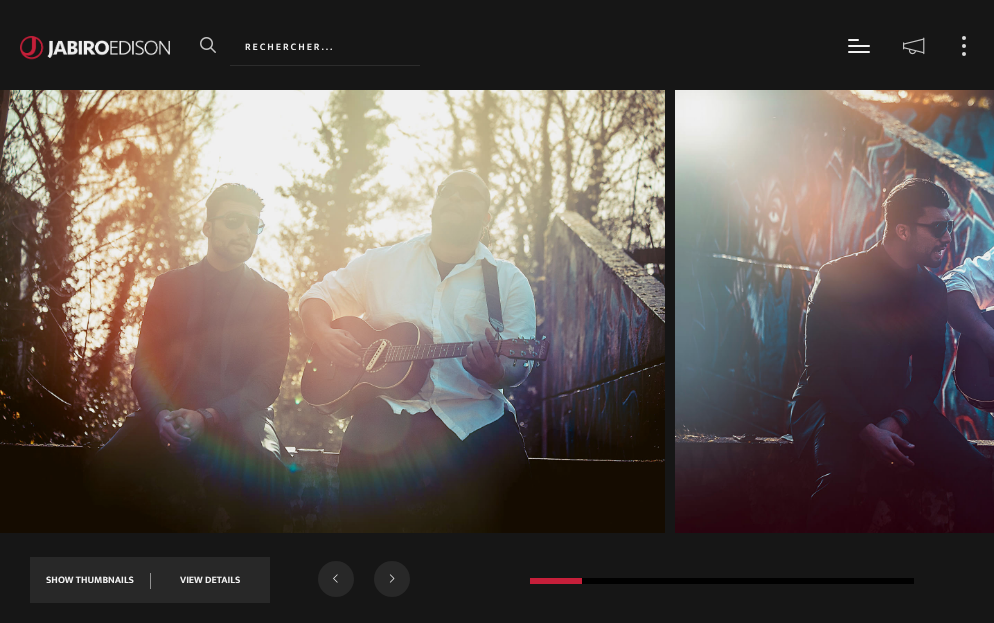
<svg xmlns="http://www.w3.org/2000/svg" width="994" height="623">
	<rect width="100%" height="100%" fill="#161616" />
	<image x="20" y="36" width="150" height="24" href="assets/img1.png" />
	<image x="200" y="37" width="16" height="16" href="assets/img2.png" />
	<rect x="230" y="65" width="190" height="1" fill="#2C2C2C" />
	<text x="245" y="50" font-family="Ek Mukta" font-size="10" font-weight="600" letter-spacing="2" fill="#F1F1F1">RECHERCHER...</text>
	<rect x="848" y="39" width="11" height="2" rx="1" fill="#F1F1F1" />
	<rect x="848" y="45" width="22" height="2" rx="1" fill="#F1F1F1" />
	<rect x="848" y="51" width="22" height="2" rx="1" fill="#F1F1F1" />
	<image x="903" y="37" width="22" height="18" href="assets/img3.png" />
	<circle cx="964" cy="38" r="2" fill="#DBDBDB" />
	<circle cx="964" cy="46" r="2" fill="#DBDBDB" />
	<circle cx="964" cy="54" r="2" fill="#DBDBDB" />
	<image x="0" y="90" width="665" height="443" href="assets/img4.png" />
	<image x="675" y="90" width="319" height="443" href="assets/img5.png" />
	<rect x="30" y="557" width="240" height="46" fill="#282828" />
	<text x="46" y="583" font-family="Ek Mukta" font-size="10" font-weight="700" fill="#F1F1F1">SHOW THUMBNAILS</text>
	<rect x="150" y="573" width="1" height="16" fill="#919191" />
	<text x="180" y="583" font-family="Ek Mukta" font-size="10" font-weight="700" fill="#F1F1F1">VIEW DETAILS</text>
	<circle cx="336" cy="579" r="18" fill="#282828" />
	<image x="333" y="574" width="5" height="9" href="assets/img6.png" />
	<circle cx="392" cy="579" r="18" fill="#282828" />
	<image x="389" y="574" width="6" height="9" href="assets/img7.png" />
	<rect x="530" y="578" width="52" height="6" fill="#C61F3A" />
	<rect x="582" y="578" width="332" height="6" fill="#010101" />
</svg>
